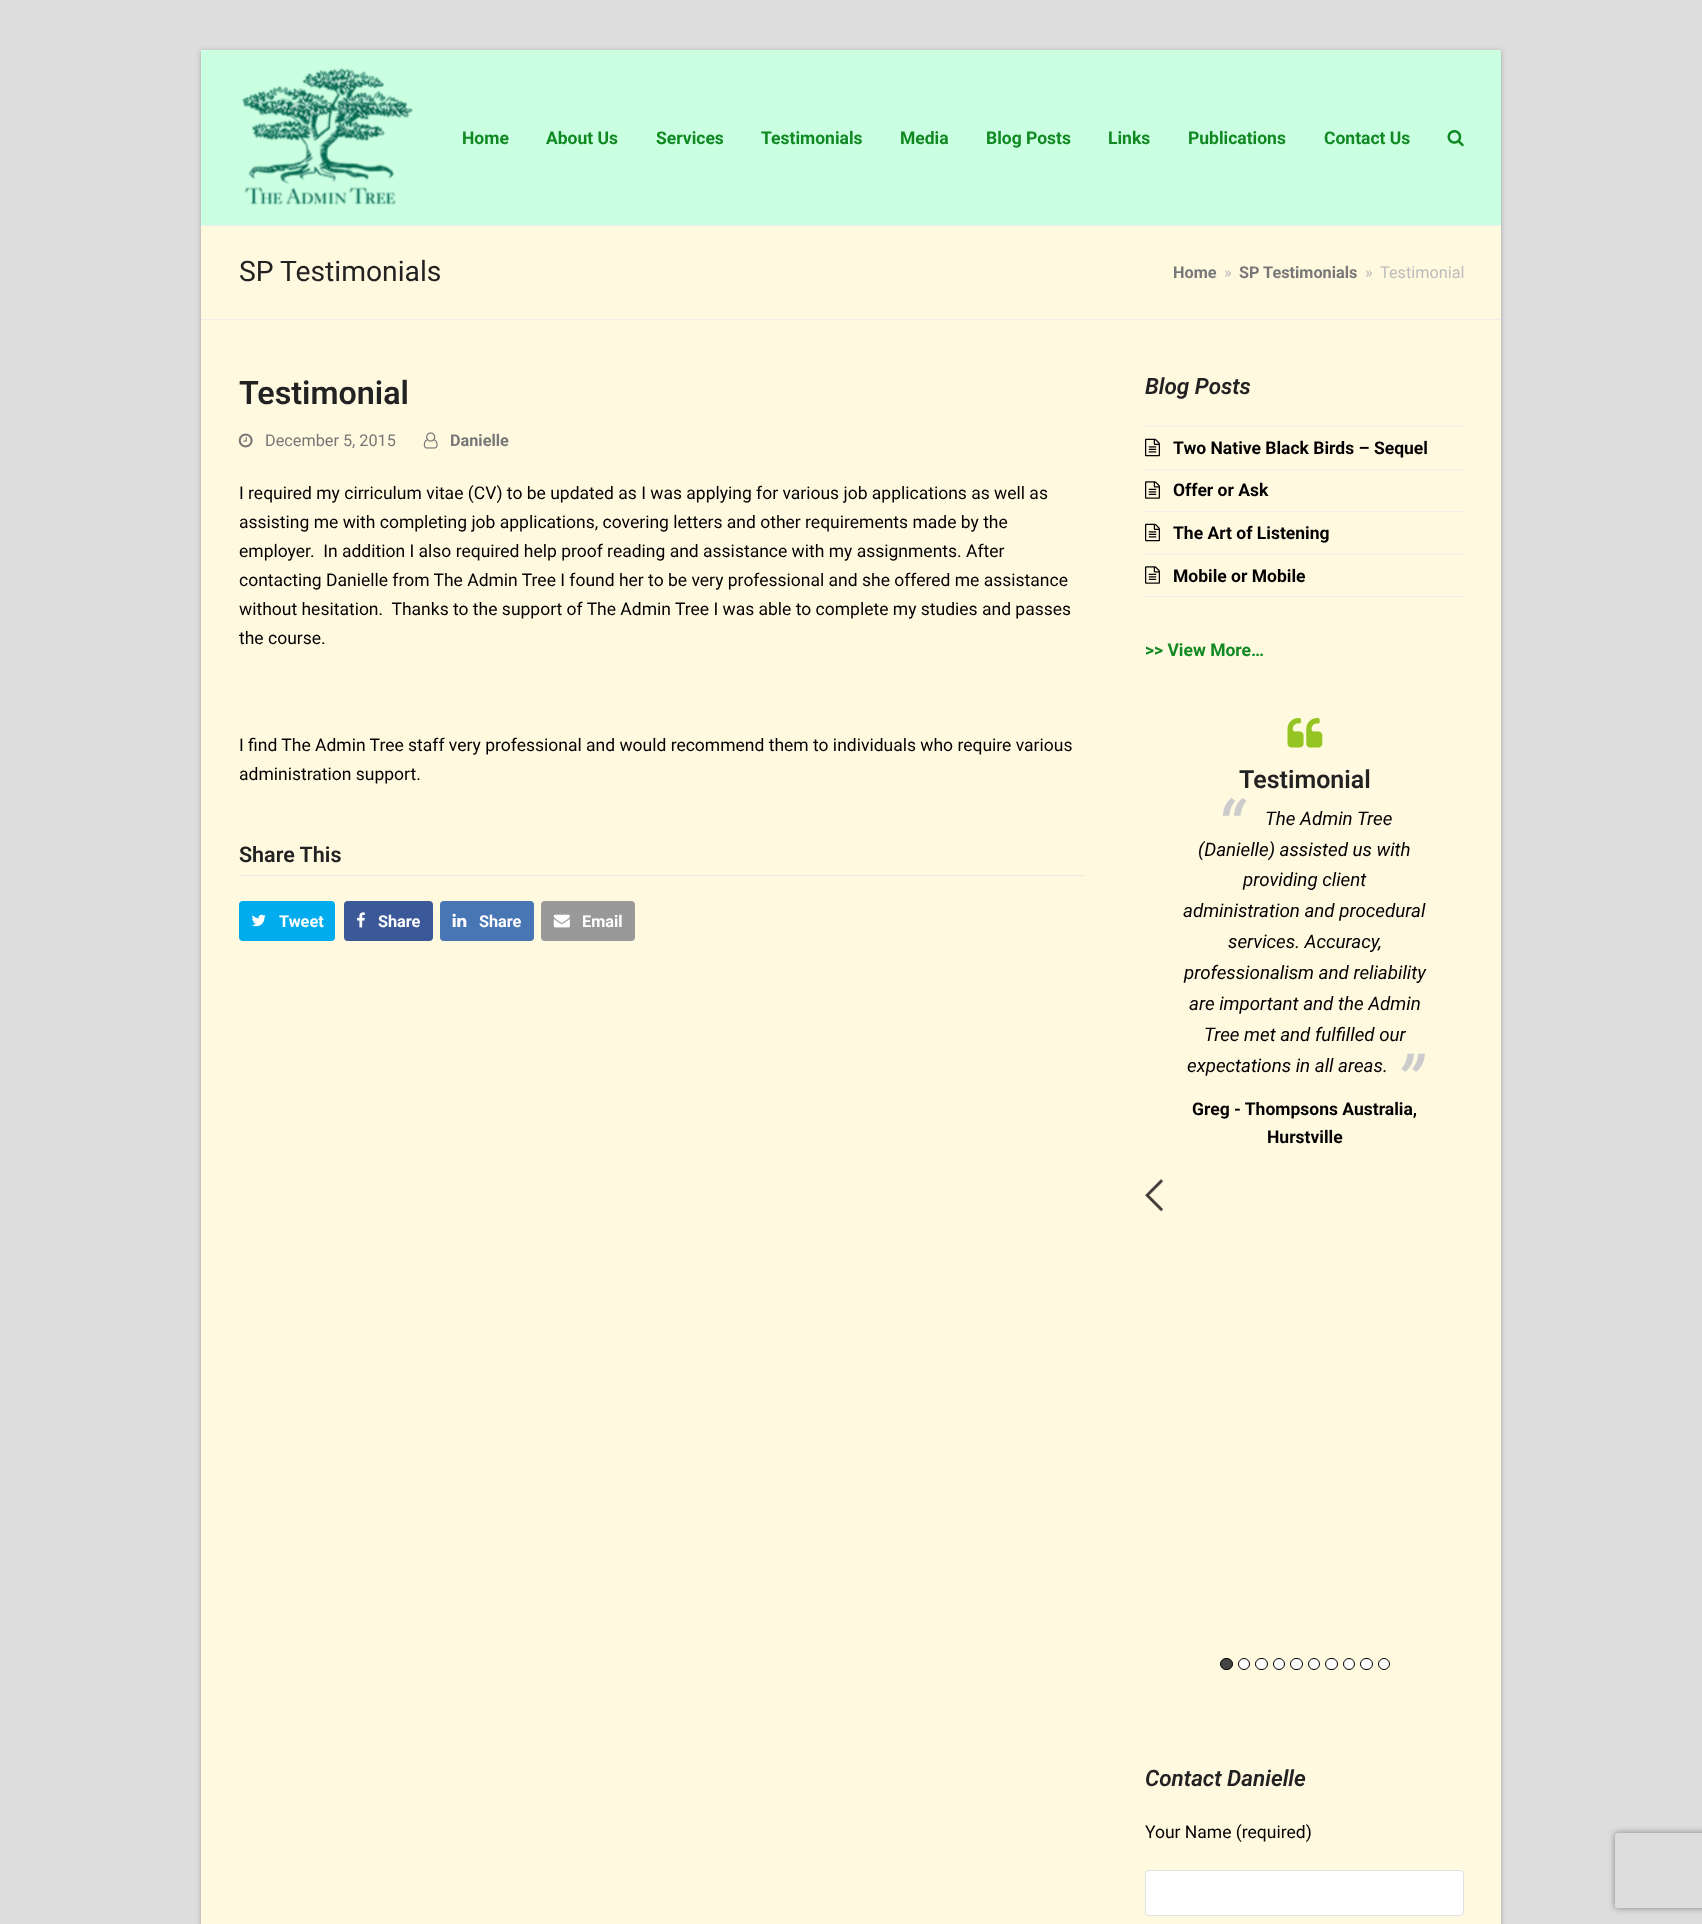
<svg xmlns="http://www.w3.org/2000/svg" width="1702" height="1924">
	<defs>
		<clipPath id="clip1"><path d="M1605 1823H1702V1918H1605ZM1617.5 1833H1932.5C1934 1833 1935 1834 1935 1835.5V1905.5C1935 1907 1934 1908 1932.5 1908H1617.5C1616 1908 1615 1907 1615 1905.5V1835.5C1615 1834 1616 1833 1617.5 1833Z" clip-rule="evenodd" /></clipPath>
	</defs>
	<rect width="100%" height="100%" fill="#DDDDDD" />
	<rect x="201" y="51" width="1300" height="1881" fill="#000000" fill-opacity="0.25" filter="blur(2.5px)" />
	<rect x="201" y="50" width="1300" height="175" fill="#CAFFE2" />
	<image x="241" y="68" width="172" height="137" href="assets/img1.png" />
	<g font-family="Roboto" font-size="17.5" font-weight="700" fill="#108922">
		<text x="462" y="144">Home</text>
		<text x="546" y="144">About Us</text>
		<text x="656" y="144">Services</text>
		<text x="761" y="144">Testimonials</text>
		<text x="900" y="144">Media</text>
		<text x="986" y="144">Blog Posts</text>
		<text x="1108" y="144">Links</text>
		<text x="1188" y="144">Publications</text>
		<text x="1324" y="144">Contact Us</text>
	</g>
	<image x="1447" y="130" width="17" height="17" href="assets/img2.png" />
	<rect x="201" y="226" width="1300" height="1698" fill="#FFF9E0" />
	<rect x="201" y="225" width="1300" height="1" fill="#EEEEEE" />
	<rect x="201" y="319" width="1300" height="1" fill="#EEEEEE" />
	<text x="239" y="281" font-family="Roboto" font-size="28.25" fill="#222222">SP Testimonials</text>
	<text x="1173" y="278" font-family="Roboto" font-size="16.25" font-weight="700" fill="#777777">Home</text>
	<text x="1224" y="278" font-family="Roboto" font-size="16.25" fill="#BCBCBC">»</text>
	<text x="1239" y="278" font-family="Roboto" font-size="16.25" font-weight="700" fill="#777777">SP Testimonials</text>
	<g font-family="Roboto" font-size="16.25" fill="#BCBCBC">
		<text x="1365" y="278">»</text>
		<text x="1380" y="278">Testimonial</text>
	</g>
	<text x="239" y="404" font-family="Roboto" font-size="32.25" font-weight="600" fill="#222222">Testimonial</text>
	<image x="238" y="433" width="15" height="15" href="assets/img3.png" />
	<text x="265" y="446" font-family="Roboto" font-size="16.25" fill="#777777">December 5, 2015</text>
	<image x="423" y="432" width="15" height="17" href="assets/img4.png" />
	<text x="450" y="446" font-family="Roboto" font-size="16.25" font-weight="700" fill="#777777">Danielle</text>
	<g font-family="Roboto" font-size="17.5" fill="#000000">
		<text x="239" y="499">I required my cirriculum vitae (CV) to be updated as I was applying for various job applications as well as</text>
		<text x="239" y="528">assisting me with completing job applications, covering letters and other requirements made by the</text>
		<text x="239" y="557" xml:space="preserve">employer.  In addition I also required help proof reading and assistance with my assignments. After</text>
		<text x="239" y="586">contacting Danielle from The Admin Tree I found her to be very professional and she offered me assistance</text>
		<text x="239" y="615" xml:space="preserve">without hesitation.  Thanks to the support of The Admin Tree I was able to complete my studies and passes</text>
		<text x="239" y="644">the course.</text>
		<text x="239" y="751">I find The Admin Tree staff very professional and would recommend them to individuals who require various</text>
		<text x="239" y="780">administration support.</text>
	</g>
	<rect x="239" y="875" width="845" height="1" fill="#E8E8E8" />
	<text x="239" y="862" font-family="Roboto" font-size="21.5" font-weight="600" fill="#222222">Share This</text>
	<rect x="239" y="901" width="96" height="40" rx="4" fill="#00ACED" />
	<image x="252" y="914" width="14" height="13" href="assets/img5.png" />
	<text x="279" y="927" font-family="Roboto" font-size="16.25" font-weight="700" fill="#FFFFFF">Tweet</text>
	<rect x="344" y="901" width="89" height="40" rx="4" fill="#3B5998" />
	<image x="357" y="912" width="8" height="16" href="assets/img6.png" />
	<text x="378" y="927" font-family="Roboto" font-size="16.25" font-weight="700" fill="#FFFFFF">Share</text>
	<rect x="440" y="901" width="94" height="40" rx="4" fill="#4875B4" />
	<image x="452" y="913" width="15" height="14" href="assets/img7.png" />
	<text x="479" y="927" font-family="Roboto" font-size="16.25" font-weight="700" fill="#FFFFFF">Share</text>
	<rect x="541" y="901" width="94" height="40" rx="4" fill="#999999" />
	<image x="553" y="914" width="17" height="14" href="assets/img8.png" />
	<text x="582" y="927" font-family="Roboto" font-size="16.25" font-weight="700" fill="#FFFFFF">Email</text>
	<text x="1145" y="394" font-family="Roboto" font-size="22.5" font-weight="600" font-style="italic" fill="#222222">Blog Posts</text>
	<rect x="1145" y="426" width="319" height="1" fill="#EEEEEE" />
	<rect x="1145" y="469" width="319" height="1" fill="#EEEEEE" />
	<image x="1145" y="438" width="15" height="19" href="assets/img9.png" />
	<text x="1173" y="454" font-family="Roboto" font-size="17.5" font-weight="700" fill="#000000">Two Native Black Birds – Sequel</text>
	<rect x="1145" y="511" width="319" height="1" fill="#EEEEEE" />
	<image x="1145" y="481" width="15" height="18" href="assets/img10.png" />
	<text x="1173" y="496" font-family="Roboto" font-size="17.5" font-weight="700" fill="#000000">Offer or Ask</text>
	<rect x="1145" y="554" width="319" height="1" fill="#EEEEEE" />
	<image x="1145" y="523" width="15" height="19" href="assets/img9.png" />
	<text x="1173" y="539" font-family="Roboto" font-size="17.5" font-weight="700" fill="#000000">The Art of Listening</text>
	<rect x="1145" y="596" width="319" height="1" fill="#EEEEEE" />
	<image x="1145" y="566" width="15" height="18" href="assets/img10.png" />
	<text x="1173" y="582" font-family="Roboto" font-size="17.5" font-weight="700" fill="#000000">Mobile or Mobile</text>
	<text x="1145" y="656" font-family="Roboto" font-size="17.5" font-weight="700" fill="#108922">&gt;&gt; View More…</text>
	<image x="1287" y="718" width="36" height="30" href="assets/img11.png" />
	<text x="1239" y="788" font-family="Roboto" font-size="25" font-weight="600" fill="#222222">Testimonial</text>
	<text x="1216" y="855" font-family="Roboto" font-size="75" font-style="italic" fill="#CCCCCC">“</text>
	<g font-family="Roboto" font-size="18.75" font-style="italic" fill="#000000">
		<text x="1265" y="825">The Admin Tree</text>
		<text x="1198" y="856">(Danielle) assisted us with</text>
		<text x="1243" y="886">providing client</text>
		<text x="1183" y="917">administration and procedural</text>
		<text x="1228" y="948">services. Accuracy,</text>
		<text x="1184" y="979">professionalism and reliability</text>
		<text x="1189" y="1010">are important and the Admin</text>
		<text x="1204" y="1041">Tree met and fulfilled our</text>
		<text x="1187" y="1072">expectations in all areas.</text>
	</g>
	<text x="1396" y="1110" font-family="Roboto" font-size="75" font-style="italic" fill="#CCCCCC">”</text>
	<g font-family="Roboto" font-size="17.5" font-weight="700" fill="#000000">
		<text x="1192" y="1115">Greg - Thompsons Australia,</text>
		<text x="1267" y="1143">Hurstville</text>
	</g>
	<image x="1145" y="1178" width="19" height="34" href="assets/img12.png" />
	<rect x="1220.5" y="1658.5" width="12" height="11" rx="5.5" fill="#444444" stroke="#000000" />
	<circle cx="1244" cy="1664" r="5.5" fill="#FFFFFF" stroke="#000000" />
	<rect x="1255.5" y="1658.5" width="12" height="11" rx="5.5" fill="#FFFFFF" stroke="#000000" />
	<circle cx="1279" cy="1664" r="5.5" fill="#FFFFFF" stroke="#000000" />
	<rect x="1290.5" y="1658.5" width="12" height="11" rx="5.5" fill="#FFFFFF" stroke="#000000" />
	<circle cx="1314" cy="1664" r="5.5" fill="#FFFFFF" stroke="#000000" />
	<rect x="1325.5" y="1658.5" width="12" height="11" rx="5.5" fill="#FFFFFF" stroke="#000000" />
	<circle cx="1349" cy="1664" r="5.5" fill="#FFFFFF" stroke="#000000" />
	<rect x="1360.5" y="1658.5" width="12" height="11" rx="5.5" fill="#FFFFFF" stroke="#000000" />
	<circle cx="1384" cy="1664" r="5.5" fill="#FFFFFF" stroke="#000000" />
	<text x="1145" y="1786" font-family="Roboto" font-size="22.5" font-weight="600" font-style="italic" fill="#222222">Contact Danielle</text>
	<text x="1145" y="1838" font-family="Roboto" font-size="17.5" fill="#000000">Your Name (required)</text>
	<rect x="1145.5" y="1870.5" width="318" height="45" rx="3.5" fill="#FFFFFF" stroke="#E1E1E1" />
	<g clip-path="url(#clip1)">
		<rect x="1615" y="1833" width="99" height="75" rx="2.5" fill="#808080" filter="blur(3px)" />
	</g>
</svg>
